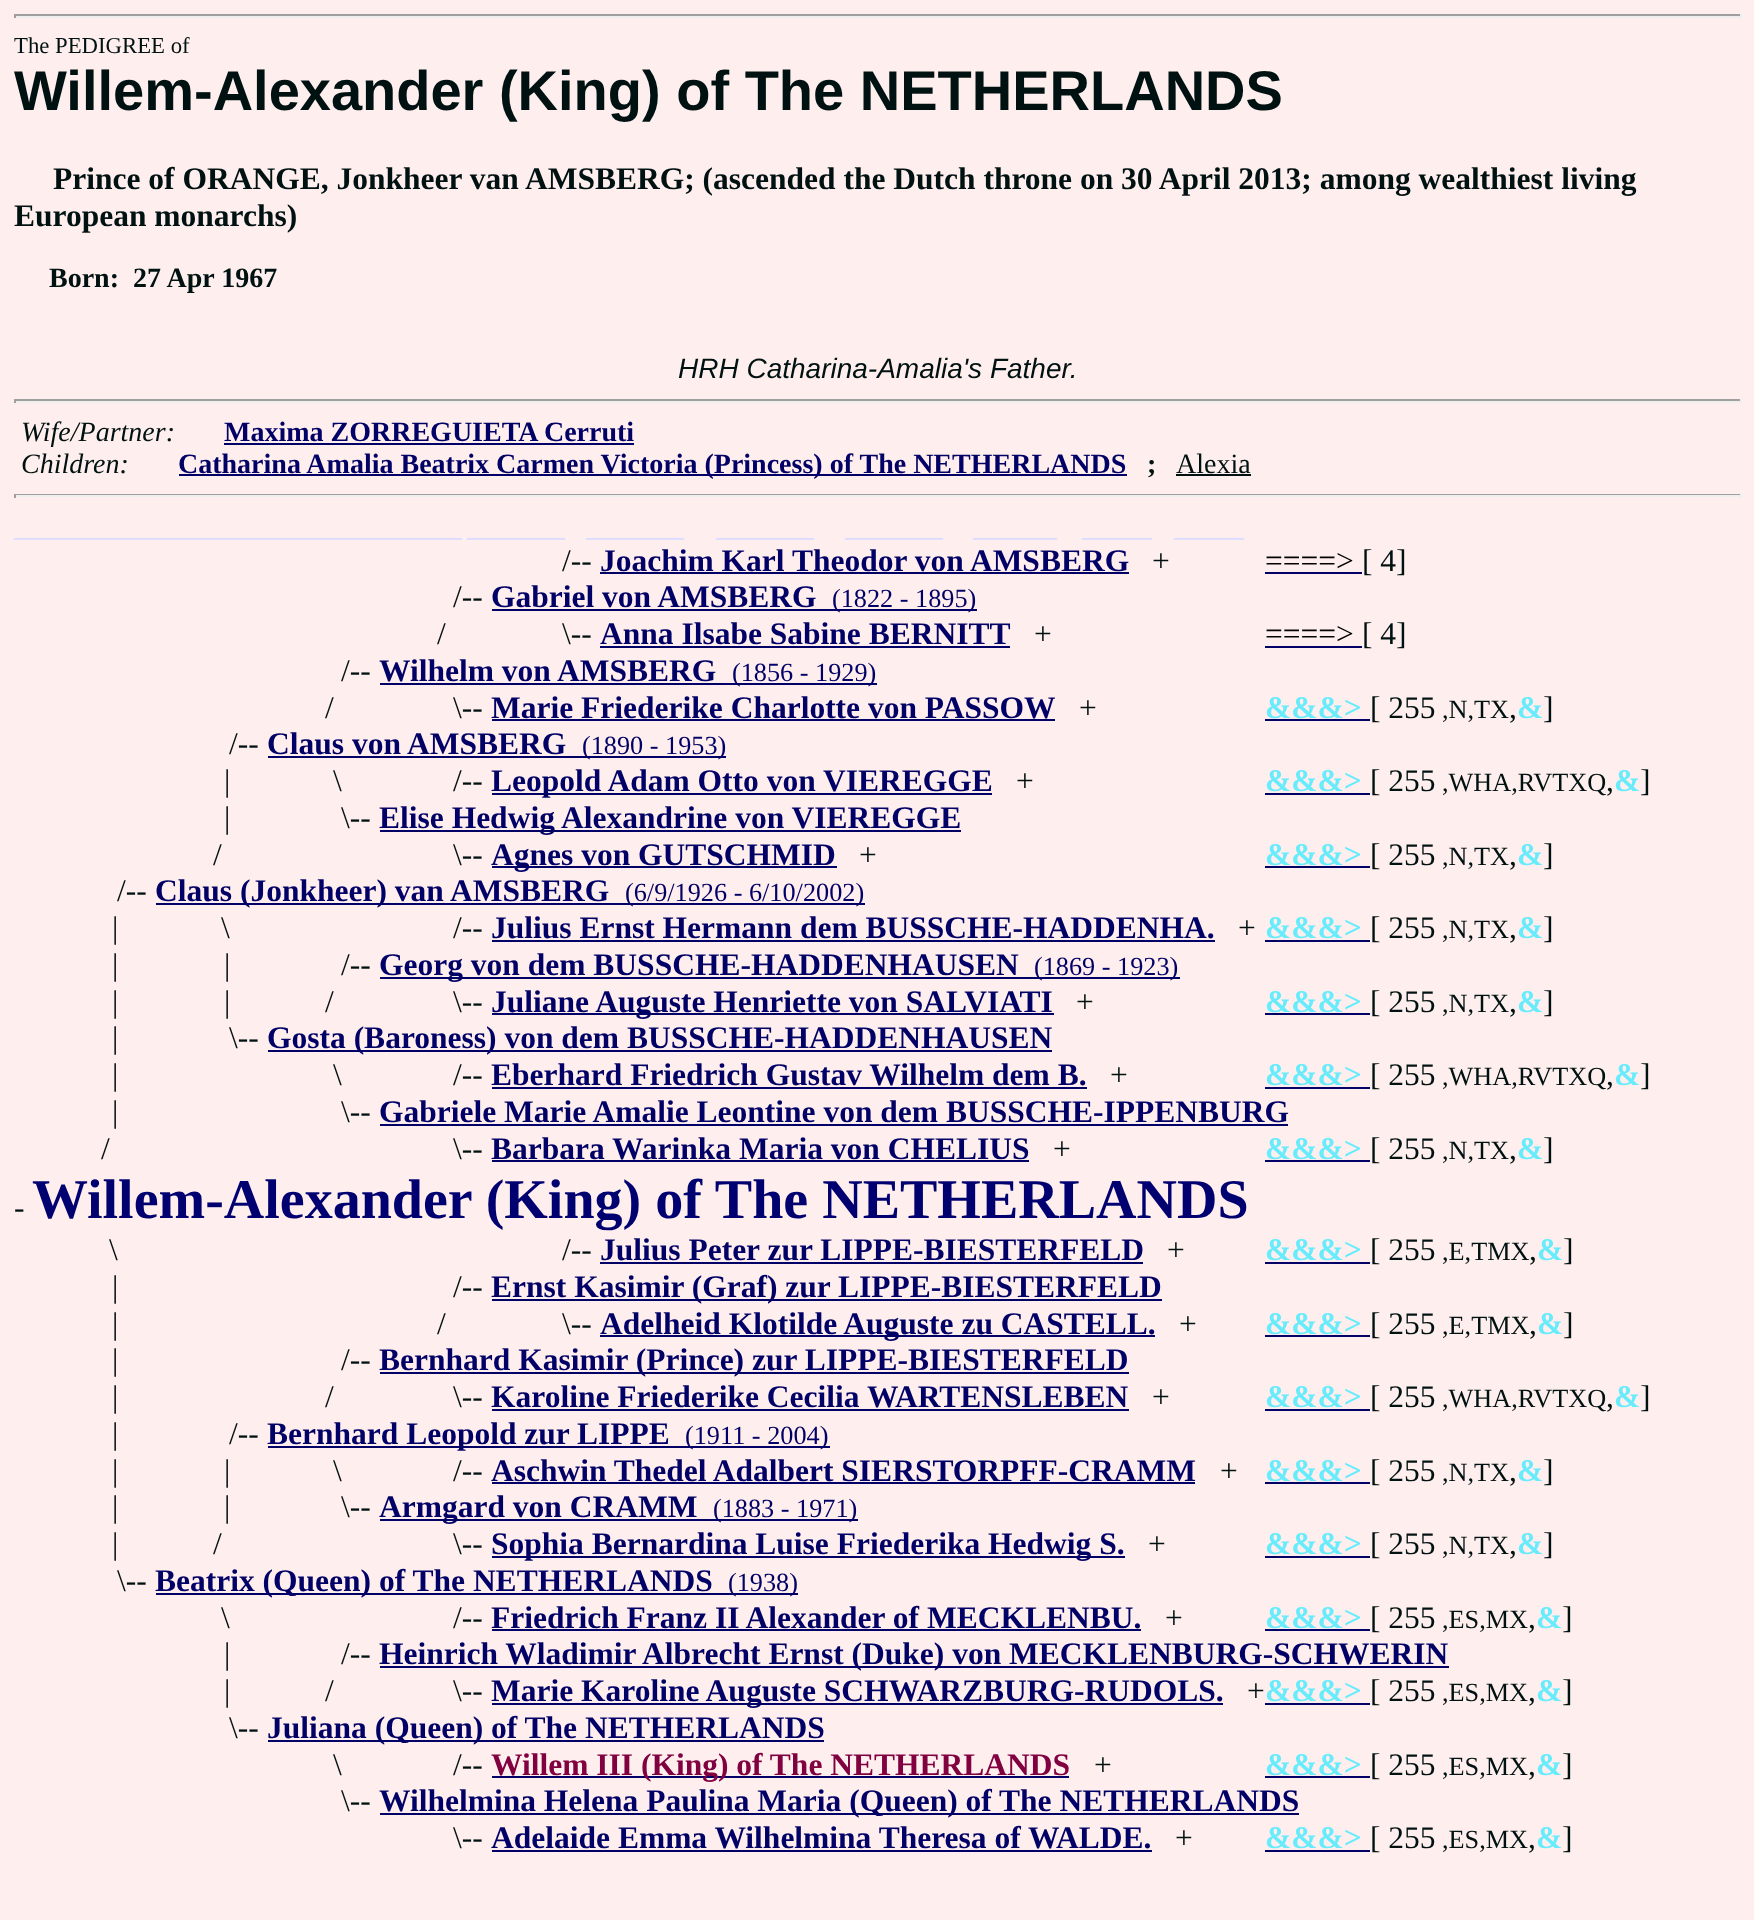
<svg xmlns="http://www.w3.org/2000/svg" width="1754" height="1920">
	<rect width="100%" height="100%" fill="#FFEEEE" />
	<rect x="14" y="14" width="1727" height="2" fill="#9F9F9F" />
	<rect x="1740" y="14" width="2" height="4" fill="#EEEEEE" />
	<rect x="14" y="16" width="1727" height="2" fill="#EEEEEE" />
	<rect x="14" y="14" width="2" height="4" fill="#9F9F9F" />
	<text x="14" y="53" font-family="Liberation Serif" font-size="22.75" fill="#001111">The PEDIGREE of</text>
	<text x="14" y="110" font-family="Liberation Sans" font-size="56" font-weight="700" fill="#001111">Willem-Alexander (King) of The NETHERLANDS</text>
	<g font-family="Liberation Serif" font-size="31.5" font-weight="700" fill="#001111">
		<text x="53" y="189">Prince of ORANGE, Jonkheer van AMSBERG; (ascended the Dutch throne on 30 April 2013; among wealthiest living</text>
		<text x="14" y="226">European monarchs)</text>
	</g>
	<g font-family="Liberation Serif" font-size="28" font-weight="700" fill="#001111">
		<text x="49" y="287">Born:</text>
		<text x="133" y="287">27 Apr 1967</text>
	</g>
	<text x="678" y="378" font-family="Liberation Sans" font-size="28" font-style="italic" fill="#001111">HRH Catharina-Amalia's Father.</text>
	<rect x="14" y="399" width="1727" height="2" fill="#9F9F9F" />
	<rect x="1740" y="399" width="2" height="4" fill="#EEEEEE" />
	<rect x="14" y="401" width="1727" height="2" fill="#EEEEEE" />
	<rect x="14" y="399" width="2" height="4" fill="#9F9F9F" />
	<text x="21" y="441" font-family="Liberation Serif" font-size="28" font-style="italic" fill="#001111">Wife/Partner:</text>
	<text x="224" y="441" font-family="Liberation Serif" font-size="28" font-weight="700" fill="#000066">Maxima ZORREGUIETA Cerruti</text>
	<rect x="224" y="443" width="410" height="2" fill="#000066" />
	<text x="21" y="473" font-family="Liberation Serif" font-size="28" font-style="italic" fill="#001111">Children:</text>
	<rect x="179" y="474" width="948" height="2" fill="#000066" />
	<text x="178" y="473" font-family="Liberation Serif" font-size="28" font-weight="700" fill="#000066">Catharina Amalia Beatrix Carmen Victoria (Princess) of The NETHERLANDS</text>
	<text x="1147" y="473" font-family="Liberation Serif" font-size="28" font-weight="700" fill="#001111">;</text>
	<text x="1176" y="473" font-family="Liberation Serif" font-size="28" fill="#001111">Alexia</text>
	<rect x="1176" y="474" width="75" height="2" fill="#001111" />
	<rect x="14" y="494" width="1727" height="1" fill="#9F9F9F" />
	<rect x="1740" y="494" width="2" height="4" fill="#EEEEEE" />
	<rect x="14" y="495" width="1727" height="2" fill="#EEEEEE" />
	<rect x="14" y="494" width="2" height="4" fill="#9F9F9F" />
	<g font-family="Liberation Serif" font-size="28" font-weight="700" fill="#DDDDFF">
		<text x="14" y="536">________________________________</text>
		<text x="467" y="536">_______</text>
		<text x="586" y="536">_______</text>
		<text x="716" y="536">_______</text>
		<text x="845" y="536">_______</text>
		<text x="973" y="536">______</text>
		<text x="1082" y="536">_____</text>
		<text x="1174" y="536">_____</text>
	</g>
	<text x="562" y="571" font-family="Liberation Serif" font-size="31.5" fill="#001111">/--</text>
	<text x="600" y="571" font-family="Liberation Serif" font-size="31.5" font-weight="700" fill="#000066">Joachim Karl Theodor von AMSBERG</text>
	<rect x="600" y="572" width="529" height="2" fill="#000066" />
	<text x="1152" y="571" font-family="Liberation Serif" font-size="31.5" fill="#001111">+</text>
	<text x="1265" y="571" font-family="Liberation Serif" font-size="31.5" fill="#000000">====&gt;</text>
	<rect x="1265" y="572" width="97" height="2" fill="#000066" />
	<g font-family="Liberation Serif" font-size="31.5" fill="#001111">
		<text x="1362" y="571">[ 4]</text>
		<text x="453" y="607">/--</text>
	</g>
	<text x="491" y="607" font-family="Liberation Serif" font-size="31.5" font-weight="700" fill="#000066">Gabriel von AMSBERG</text>
	<rect x="492" y="609" width="485" height="2" fill="#000066" />
	<text x="832" y="607" font-family="Liberation Serif" font-size="26.25" fill="#000066">(1822 - 1895)</text>
	<g font-family="Liberation Serif" font-size="31.5" fill="#001111">
		<text x="437" y="644">/</text>
		<text x="562" y="644">\--</text>
	</g>
	<text x="600" y="644" font-family="Liberation Serif" font-size="31.5" font-weight="700" fill="#000066">Anna Ilsabe Sabine BERNITT</text>
	<rect x="600" y="646" width="410" height="2" fill="#000066" />
	<text x="1034" y="644" font-family="Liberation Serif" font-size="31.5" fill="#001111">+</text>
	<text x="1265" y="644" font-family="Liberation Serif" font-size="31.5" fill="#000000">====&gt;</text>
	<rect x="1265" y="646" width="97" height="2" fill="#000066" />
	<g font-family="Liberation Serif" font-size="31.5" fill="#001111">
		<text x="1362" y="644">[ 4]</text>
		<text x="341" y="681">/--</text>
	</g>
	<text x="379" y="681" font-family="Liberation Serif" font-size="31.5" font-weight="700" fill="#000066">Wilhelm von AMSBERG</text>
	<rect x="380" y="683" width="497" height="2" fill="#000066" />
	<text x="732" y="681" font-family="Liberation Serif" font-size="26.25" fill="#000066">(1856 - 1929)</text>
	<g font-family="Liberation Serif" font-size="31.5" fill="#001111">
		<text x="325" y="718">/</text>
		<text x="453" y="718">\--</text>
	</g>
	<text x="491" y="718" font-family="Liberation Serif" font-size="31.5" font-weight="700" fill="#000066">Marie Friederike Charlotte von PASSOW</text>
	<rect x="492" y="719" width="563" height="2" fill="#000066" />
	<text x="1079" y="718" font-family="Liberation Serif" font-size="31.5" fill="#001111">+</text>
	<text x="1265" y="718" font-family="Liberation Serif" font-size="31.5" font-weight="700" fill="#68ECFC">&amp;&amp;&amp;&gt;</text>
	<rect x="1265" y="719" width="105" height="2" fill="#000066" />
	<text x="1370" y="718" font-family="Liberation Serif" font-size="31.5" fill="#001111">[ 255</text>
	<text x="1442" y="718" font-family="Liberation Serif" font-size="26.25" fill="#001111">,N,TX</text>
	<text x="1509" y="718" font-family="Liberation Serif" font-size="31.5" fill="#001111">,</text>
	<text x="1517" y="718" font-family="Liberation Serif" font-size="31.5" font-weight="700" fill="#68ECFC">&amp;</text>
	<g font-family="Liberation Serif" font-size="31.5" fill="#001111">
		<text x="1543" y="718">]</text>
		<text x="229" y="754">/--</text>
	</g>
	<text x="267" y="754" font-family="Liberation Serif" font-size="31.5" font-weight="700" fill="#000066">Claus von AMSBERG</text>
	<rect x="268" y="756" width="458" height="2" fill="#000066" />
	<text x="582" y="754" font-family="Liberation Serif" font-size="26.25" fill="#000066">(1890 - 1953)</text>
	<g font-family="Liberation Serif" font-size="31.5" fill="#001111">
		<text x="224" y="791">|</text>
		<text x="333" y="791">\</text>
		<text x="453" y="791">/--</text>
	</g>
	<rect x="492" y="793" width="500" height="2" fill="#000066" />
	<text x="491" y="791" font-family="Liberation Serif" font-size="31.5" font-weight="700" fill="#000066">Leopold Adam Otto von VIEREGGE</text>
	<text x="1016" y="791" font-family="Liberation Serif" font-size="31.5" fill="#001111">+</text>
	<text x="1265" y="791" font-family="Liberation Serif" font-size="31.5" font-weight="700" fill="#68ECFC">&amp;&amp;&amp;&gt;</text>
	<rect x="1265" y="793" width="105" height="2" fill="#000066" />
	<text x="1370" y="791" font-family="Liberation Serif" font-size="31.5" fill="#001111">[ 255</text>
	<text x="1442" y="791" font-family="Liberation Serif" font-size="26.25" fill="#001111">,WHA,RVTXQ</text>
	<text x="1606" y="791" font-family="Liberation Serif" font-size="31.5" fill="#001111">,</text>
	<text x="1614" y="791" font-family="Liberation Serif" font-size="31.5" font-weight="700" fill="#68ECFC">&amp;</text>
	<g font-family="Liberation Serif" font-size="31.5" fill="#001111">
		<text x="1640" y="791">]</text>
		<text x="224" y="828">|</text>
		<text x="341" y="828">\--</text>
	</g>
	<rect x="380" y="830" width="581" height="2" fill="#000066" />
	<text x="379" y="828" font-family="Liberation Serif" font-size="31.5" font-weight="700" fill="#000066">Elise Hedwig Alexandrine von VIEREGGE</text>
	<g font-family="Liberation Serif" font-size="31.5" fill="#001111">
		<text x="213" y="865">/</text>
		<text x="453" y="865">\--</text>
	</g>
	<rect x="492" y="866" width="345" height="2" fill="#000066" />
	<text x="491" y="865" font-family="Liberation Serif" font-size="31.5" font-weight="700" fill="#000066">Agnes von GUTSCHMID</text>
	<text x="859" y="865" font-family="Liberation Serif" font-size="31.5" fill="#001111">+</text>
	<text x="1265" y="865" font-family="Liberation Serif" font-size="31.5" font-weight="700" fill="#68ECFC">&amp;&amp;&amp;&gt;</text>
	<rect x="1265" y="866" width="105" height="2" fill="#000066" />
	<text x="1370" y="865" font-family="Liberation Serif" font-size="31.5" fill="#001111">[ 255</text>
	<text x="1442" y="865" font-family="Liberation Serif" font-size="26.25" fill="#001111">,N,TX</text>
	<text x="1509" y="865" font-family="Liberation Serif" font-size="31.5" fill="#001111">,</text>
	<text x="1517" y="865" font-family="Liberation Serif" font-size="31.5" font-weight="700" fill="#68ECFC">&amp;</text>
	<g font-family="Liberation Serif" font-size="31.5" fill="#001111">
		<text x="1543" y="865">]</text>
		<text x="117" y="901">/--</text>
	</g>
	<rect x="156" y="903" width="709" height="2" fill="#000066" />
	<text x="155" y="901" font-family="Liberation Serif" font-size="31.5" font-weight="700" fill="#000066">Claus (Jonkheer) van AMSBERG</text>
	<text x="625" y="901" font-family="Liberation Serif" font-size="26.25" fill="#000066">(6/9/1926 - 6/10/2002)</text>
	<g font-family="Liberation Serif" font-size="31.5" fill="#001111">
		<text x="112" y="938">|</text>
		<text x="221" y="938">\</text>
		<text x="453" y="938">/--</text>
	</g>
	<text x="491" y="938" font-family="Liberation Serif" font-size="31.5" font-weight="700" fill="#000066">Julius Ernst Hermann dem BUSSCHE-HADDENHA.</text>
	<rect x="492" y="940" width="723" height="2" fill="#000066" />
	<text x="1238" y="938" font-family="Liberation Serif" font-size="31.5" fill="#001111">+</text>
	<text x="1265" y="938" font-family="Liberation Serif" font-size="31.5" font-weight="700" fill="#68ECFC">&amp;&amp;&amp;&gt;</text>
	<rect x="1265" y="940" width="105" height="2" fill="#000066" />
	<text x="1370" y="938" font-family="Liberation Serif" font-size="31.5" fill="#001111">[ 255</text>
	<text x="1442" y="938" font-family="Liberation Serif" font-size="26.25" fill="#001111">,N,TX</text>
	<text x="1509" y="938" font-family="Liberation Serif" font-size="31.5" fill="#001111">,</text>
	<text x="1517" y="938" font-family="Liberation Serif" font-size="31.5" font-weight="700" fill="#68ECFC">&amp;</text>
	<g font-family="Liberation Serif" font-size="31.5" fill="#001111">
		<text x="1543" y="938">]</text>
		<text x="112" y="975">|</text>
		<text x="224" y="975">|</text>
		<text x="341" y="975">/--</text>
	</g>
	<rect x="380" y="977" width="800" height="2" fill="#000066" />
	<text x="379" y="975" font-family="Liberation Serif" font-size="31.5" font-weight="700" fill="#000066">Georg von dem BUSSCHE-HADDENHAUSEN</text>
	<text x="1034" y="975" font-family="Liberation Serif" font-size="26.25" fill="#000066">(1869 - 1923)</text>
	<g font-family="Liberation Serif" font-size="31.5" fill="#001111">
		<text x="112" y="1012">|</text>
		<text x="224" y="1012">|</text>
		<text x="325" y="1012">/</text>
		<text x="453" y="1012">\--</text>
	</g>
	<rect x="492" y="1013" width="562" height="2" fill="#000066" />
	<text x="491" y="1012" font-family="Liberation Serif" font-size="31.5" font-weight="700" fill="#000066">Juliane Auguste Henriette von SALVIATI</text>
	<text x="1076" y="1012" font-family="Liberation Serif" font-size="31.5" fill="#001111">+</text>
	<text x="1265" y="1012" font-family="Liberation Serif" font-size="31.5" font-weight="700" fill="#68ECFC">&amp;&amp;&amp;&gt;</text>
	<rect x="1265" y="1013" width="105" height="2" fill="#000066" />
	<text x="1370" y="1012" font-family="Liberation Serif" font-size="31.5" fill="#001111">[ 255</text>
	<text x="1442" y="1012" font-family="Liberation Serif" font-size="26.25" fill="#001111">,N,TX</text>
	<text x="1509" y="1012" font-family="Liberation Serif" font-size="31.5" fill="#001111">,</text>
	<text x="1517" y="1012" font-family="Liberation Serif" font-size="31.5" font-weight="700" fill="#68ECFC">&amp;</text>
	<g font-family="Liberation Serif" font-size="31.5" fill="#001111">
		<text x="1543" y="1012">]</text>
		<text x="112" y="1048">|</text>
		<text x="229" y="1048">\--</text>
	</g>
	<rect x="268" y="1050" width="784" height="2" fill="#000066" />
	<text x="267" y="1048" font-family="Liberation Serif" font-size="31.5" font-weight="700" fill="#000066">Gosta (Baroness) von dem BUSSCHE-HADDENHAUSEN</text>
	<g font-family="Liberation Serif" font-size="31.5" fill="#001111">
		<text x="112" y="1085">|</text>
		<text x="333" y="1085">\</text>
		<text x="453" y="1085">/--</text>
	</g>
	<text x="491" y="1085" font-family="Liberation Serif" font-size="31.5" font-weight="700" fill="#000066">Eberhard Friedrich Gustav Wilhelm dem B.</text>
	<rect x="492" y="1087" width="595" height="2" fill="#000066" />
	<text x="1110" y="1085" font-family="Liberation Serif" font-size="31.5" fill="#001111">+</text>
	<text x="1265" y="1085" font-family="Liberation Serif" font-size="31.5" font-weight="700" fill="#68ECFC">&amp;&amp;&amp;&gt;</text>
	<rect x="1265" y="1087" width="105" height="2" fill="#000066" />
	<text x="1370" y="1085" font-family="Liberation Serif" font-size="31.5" fill="#001111">[ 255</text>
	<text x="1442" y="1085" font-family="Liberation Serif" font-size="26.25" fill="#001111">,WHA,RVTXQ</text>
	<text x="1606" y="1085" font-family="Liberation Serif" font-size="31.5" fill="#001111">,</text>
	<text x="1614" y="1085" font-family="Liberation Serif" font-size="31.5" font-weight="700" fill="#68ECFC">&amp;</text>
	<g font-family="Liberation Serif" font-size="31.5" fill="#001111">
		<text x="1640" y="1085">]</text>
		<text x="112" y="1122">|</text>
		<text x="341" y="1122">\--</text>
	</g>
	<text x="379" y="1122" font-family="Liberation Serif" font-size="31.5" font-weight="700" fill="#000066">Gabriele Marie Amalie Leontine von dem BUSSCHE-IPPENBURG</text>
	<rect x="380" y="1124" width="908" height="2" fill="#000066" />
	<g font-family="Liberation Serif" font-size="31.5" fill="#001111">
		<text x="101" y="1159">/</text>
		<text x="453" y="1159">\--</text>
	</g>
	<text x="491" y="1159" font-family="Liberation Serif" font-size="31.5" font-weight="700" fill="#000066">Barbara Warinka Maria von CHELIUS</text>
	<rect x="492" y="1160" width="537" height="2" fill="#000066" />
	<text x="1053" y="1159" font-family="Liberation Serif" font-size="31.5" fill="#001111">+</text>
	<text x="1265" y="1159" font-family="Liberation Serif" font-size="31.5" font-weight="700" fill="#68ECFC">&amp;&amp;&amp;&gt;</text>
	<rect x="1265" y="1160" width="105" height="2" fill="#000066" />
	<text x="1370" y="1159" font-family="Liberation Serif" font-size="31.5" fill="#001111">[ 255</text>
	<text x="1442" y="1159" font-family="Liberation Serif" font-size="26.25" fill="#001111">,N,TX</text>
	<text x="1509" y="1159" font-family="Liberation Serif" font-size="31.5" fill="#001111">,</text>
	<text x="1517" y="1159" font-family="Liberation Serif" font-size="31.5" font-weight="700" fill="#68ECFC">&amp;</text>
	<g font-family="Liberation Serif" font-size="31.5" fill="#001111">
		<text x="1543" y="1159">]</text>
		<text x="14" y="1218">-</text>
	</g>
	<text x="32" y="1218" font-family="Liberation Serif" font-size="56" font-weight="700" fill="#000070">Willem-Alexander (King) of The NETHERLANDS</text>
	<g font-family="Liberation Serif" font-size="31.5" fill="#001111">
		<text x="109" y="1260">\</text>
		<text x="562" y="1260">/--</text>
	</g>
	<text x="600" y="1260" font-family="Liberation Serif" font-size="31.5" font-weight="700" fill="#000066">Julius Peter zur LIPPE-BIESTERFELD</text>
	<rect x="600" y="1262" width="543" height="2" fill="#000066" />
	<text x="1167" y="1260" font-family="Liberation Serif" font-size="31.5" fill="#001111">+</text>
	<text x="1265" y="1260" font-family="Liberation Serif" font-size="31.5" font-weight="700" fill="#68ECFC">&amp;&amp;&amp;&gt;</text>
	<rect x="1265" y="1262" width="105" height="2" fill="#000066" />
	<text x="1370" y="1260" font-family="Liberation Serif" font-size="31.5" fill="#001111">[ 255</text>
	<text x="1442" y="1260" font-family="Liberation Serif" font-size="26.25" fill="#001111">,E,TMX</text>
	<text x="1529" y="1260" font-family="Liberation Serif" font-size="31.5" fill="#001111">,</text>
	<text x="1537" y="1260" font-family="Liberation Serif" font-size="31.5" font-weight="700" fill="#68ECFC">&amp;</text>
	<g font-family="Liberation Serif" font-size="31.5" fill="#001111">
		<text x="1563" y="1260">]</text>
		<text x="112" y="1297">|</text>
		<text x="453" y="1297">/--</text>
	</g>
	<rect x="492" y="1299" width="670" height="2" fill="#000066" />
	<text x="491" y="1297" font-family="Liberation Serif" font-size="31.5" font-weight="700" fill="#000066">Ernst Kasimir (Graf) zur LIPPE-BIESTERFELD</text>
	<g font-family="Liberation Serif" font-size="31.5" fill="#001111">
		<text x="112" y="1334">|</text>
		<text x="437" y="1334">/</text>
		<text x="562" y="1334">\--</text>
	</g>
	<rect x="600" y="1335" width="555" height="2" fill="#000066" />
	<text x="600" y="1334" font-family="Liberation Serif" font-size="31.5" font-weight="700" fill="#000066">Adelheid Klotilde Auguste zu CASTELL.</text>
	<text x="1179" y="1334" font-family="Liberation Serif" font-size="31.5" fill="#001111">+</text>
	<text x="1265" y="1334" font-family="Liberation Serif" font-size="31.5" font-weight="700" fill="#68ECFC">&amp;&amp;&amp;&gt;</text>
	<rect x="1265" y="1335" width="105" height="2" fill="#000066" />
	<text x="1370" y="1334" font-family="Liberation Serif" font-size="31.5" fill="#001111">[ 255</text>
	<text x="1442" y="1334" font-family="Liberation Serif" font-size="26.25" fill="#001111">,E,TMX</text>
	<text x="1529" y="1334" font-family="Liberation Serif" font-size="31.5" fill="#001111">,</text>
	<text x="1537" y="1334" font-family="Liberation Serif" font-size="31.5" font-weight="700" fill="#68ECFC">&amp;</text>
	<g font-family="Liberation Serif" font-size="31.5" fill="#001111">
		<text x="1563" y="1334">]</text>
		<text x="112" y="1370">|</text>
		<text x="341" y="1370">/--</text>
	</g>
	<rect x="380" y="1372" width="749" height="2" fill="#000066" />
	<text x="379" y="1370" font-family="Liberation Serif" font-size="31.5" font-weight="700" fill="#000066">Bernhard Kasimir (Prince) zur LIPPE-BIESTERFELD</text>
	<g font-family="Liberation Serif" font-size="31.5" fill="#001111">
		<text x="112" y="1407">|</text>
		<text x="325" y="1407">/</text>
		<text x="453" y="1407">\--</text>
	</g>
	<text x="491" y="1407" font-family="Liberation Serif" font-size="31.5" font-weight="700" fill="#000066">Karoline Friederike Cecilia WARTENSLEBEN</text>
	<rect x="492" y="1409" width="637" height="2" fill="#000066" />
	<text x="1152" y="1407" font-family="Liberation Serif" font-size="31.5" fill="#001111">+</text>
	<text x="1265" y="1407" font-family="Liberation Serif" font-size="31.5" font-weight="700" fill="#68ECFC">&amp;&amp;&amp;&gt;</text>
	<rect x="1265" y="1409" width="105" height="2" fill="#000066" />
	<text x="1370" y="1407" font-family="Liberation Serif" font-size="31.5" fill="#001111">[ 255</text>
	<text x="1442" y="1407" font-family="Liberation Serif" font-size="26.25" fill="#001111">,WHA,RVTXQ</text>
	<text x="1606" y="1407" font-family="Liberation Serif" font-size="31.5" fill="#001111">,</text>
	<text x="1614" y="1407" font-family="Liberation Serif" font-size="31.5" font-weight="700" fill="#68ECFC">&amp;</text>
	<g font-family="Liberation Serif" font-size="31.5" fill="#001111">
		<text x="1640" y="1407">]</text>
		<text x="112" y="1444">|</text>
		<text x="229" y="1444">/--</text>
	</g>
	<rect x="268" y="1446" width="562" height="2" fill="#000066" />
	<text x="267" y="1444" font-family="Liberation Serif" font-size="31.5" font-weight="700" fill="#000066">Bernhard Leopold zur LIPPE</text>
	<text x="685" y="1444" font-family="Liberation Serif" font-size="26.25" fill="#000066">(1911 - 2004)</text>
	<g font-family="Liberation Serif" font-size="31.5" fill="#001111">
		<text x="112" y="1481">|</text>
		<text x="224" y="1481">|</text>
		<text x="333" y="1481">\</text>
		<text x="453" y="1481">/--</text>
	</g>
	<text x="491" y="1481" font-family="Liberation Serif" font-size="31.5" font-weight="700" fill="#000066">Aschwin Thedel Adalbert SIERSTORPFF-CRAMM</text>
	<rect x="492" y="1482" width="703" height="2" fill="#000066" />
	<text x="1220" y="1481" font-family="Liberation Serif" font-size="31.5" fill="#001111">+</text>
	<text x="1265" y="1481" font-family="Liberation Serif" font-size="31.5" font-weight="700" fill="#68ECFC">&amp;&amp;&amp;&gt;</text>
	<rect x="1265" y="1482" width="105" height="2" fill="#000066" />
	<text x="1370" y="1481" font-family="Liberation Serif" font-size="31.5" fill="#001111">[ 255</text>
	<text x="1442" y="1481" font-family="Liberation Serif" font-size="26.25" fill="#001111">,N,TX</text>
	<text x="1509" y="1481" font-family="Liberation Serif" font-size="31.5" fill="#001111">,</text>
	<text x="1517" y="1481" font-family="Liberation Serif" font-size="31.5" font-weight="700" fill="#68ECFC">&amp;</text>
	<g font-family="Liberation Serif" font-size="31.5" fill="#001111">
		<text x="1543" y="1481">]</text>
		<text x="112" y="1517">|</text>
		<text x="224" y="1517">|</text>
		<text x="341" y="1517">\--</text>
	</g>
	<rect x="380" y="1519" width="478" height="2" fill="#000066" />
	<text x="379" y="1517" font-family="Liberation Serif" font-size="31.5" font-weight="700" fill="#000066">Armgard von CRAMM</text>
	<text x="713" y="1517" font-family="Liberation Serif" font-size="26.25" fill="#000066">(1883 - 1971)</text>
	<g font-family="Liberation Serif" font-size="31.5" fill="#001111">
		<text x="112" y="1554">|</text>
		<text x="213" y="1554">/</text>
		<text x="453" y="1554">\--</text>
	</g>
	<rect x="492" y="1556" width="633" height="2" fill="#000066" />
	<text x="491" y="1554" font-family="Liberation Serif" font-size="31.5" font-weight="700" fill="#000066">Sophia Bernardina Luise Friederika Hedwig S.</text>
	<text x="1148" y="1554" font-family="Liberation Serif" font-size="31.5" fill="#001111">+</text>
	<text x="1265" y="1554" font-family="Liberation Serif" font-size="31.5" font-weight="700" fill="#68ECFC">&amp;&amp;&amp;&gt;</text>
	<rect x="1265" y="1556" width="105" height="2" fill="#000066" />
	<text x="1370" y="1554" font-family="Liberation Serif" font-size="31.5" fill="#001111">[ 255</text>
	<text x="1442" y="1554" font-family="Liberation Serif" font-size="26.25" fill="#001111">,N,TX</text>
	<text x="1509" y="1554" font-family="Liberation Serif" font-size="31.5" fill="#001111">,</text>
	<text x="1517" y="1554" font-family="Liberation Serif" font-size="31.5" font-weight="700" fill="#68ECFC">&amp;</text>
	<g font-family="Liberation Serif" font-size="31.5" fill="#001111">
		<text x="1543" y="1554">]</text>
		<text x="117" y="1591">\--</text>
	</g>
	<rect x="156" y="1593" width="642" height="2" fill="#000066" />
	<text x="155" y="1591" font-family="Liberation Serif" font-size="31.5" font-weight="700" fill="#000066">Beatrix (Queen) of The NETHERLANDS</text>
	<text x="728" y="1591" font-family="Liberation Serif" font-size="26.25" fill="#000066">(1938)</text>
	<g font-family="Liberation Serif" font-size="31.5" fill="#001111">
		<text x="221" y="1628">\</text>
		<text x="453" y="1628">/--</text>
	</g>
	<text x="491" y="1628" font-family="Liberation Serif" font-size="31.5" font-weight="700" fill="#000066">Friedrich Franz II Alexander of MECKLENBU.</text>
	<rect x="492" y="1629" width="649" height="2" fill="#000066" />
	<text x="1165" y="1628" font-family="Liberation Serif" font-size="31.5" fill="#001111">+</text>
	<text x="1265" y="1628" font-family="Liberation Serif" font-size="31.5" font-weight="700" fill="#68ECFC">&amp;&amp;&amp;&gt;</text>
	<rect x="1265" y="1629" width="105" height="2" fill="#000066" />
	<text x="1370" y="1628" font-family="Liberation Serif" font-size="31.5" fill="#001111">[ 255</text>
	<text x="1442" y="1628" font-family="Liberation Serif" font-size="26.25" fill="#001111">,ES,MX</text>
	<text x="1528" y="1628" font-family="Liberation Serif" font-size="31.5" fill="#001111">,</text>
	<text x="1536" y="1628" font-family="Liberation Serif" font-size="31.5" font-weight="700" fill="#68ECFC">&amp;</text>
	<g font-family="Liberation Serif" font-size="31.5" fill="#001111">
		<text x="1562" y="1628">]</text>
		<text x="224" y="1664">|</text>
		<text x="341" y="1664">/--</text>
	</g>
	<rect x="380" y="1666" width="1069" height="2" fill="#000066" />
	<text x="379" y="1664" font-family="Liberation Serif" font-size="31.5" font-weight="700" fill="#000066">Heinrich Wladimir Albrecht Ernst (Duke) von MECKLENBURG-SCHWERIN</text>
	<g font-family="Liberation Serif" font-size="31.5" fill="#001111">
		<text x="224" y="1701">|</text>
		<text x="325" y="1701">/</text>
		<text x="453" y="1701">\--</text>
	</g>
	<rect x="492" y="1703" width="731" height="2" fill="#000066" />
	<text x="491" y="1701" font-family="Liberation Serif" font-size="31.5" font-weight="700" fill="#000066">Marie Karoline Auguste SCHWARZBURG-RUDOLS.</text>
	<text x="1247" y="1701" font-family="Liberation Serif" font-size="31.5" fill="#001111">+</text>
	<text x="1265" y="1701" font-family="Liberation Serif" font-size="31.5" font-weight="700" fill="#68ECFC">&amp;&amp;&amp;&gt;</text>
	<rect x="1265" y="1703" width="105" height="2" fill="#000066" />
	<text x="1370" y="1701" font-family="Liberation Serif" font-size="31.5" fill="#001111">[ 255</text>
	<text x="1442" y="1701" font-family="Liberation Serif" font-size="26.25" fill="#001111">,ES,MX</text>
	<text x="1528" y="1701" font-family="Liberation Serif" font-size="31.5" fill="#001111">,</text>
	<text x="1536" y="1701" font-family="Liberation Serif" font-size="31.5" font-weight="700" fill="#68ECFC">&amp;</text>
	<g font-family="Liberation Serif" font-size="31.5" fill="#001111">
		<text x="1562" y="1701">]</text>
		<text x="229" y="1738">\--</text>
	</g>
	<rect x="268" y="1740" width="556" height="2" fill="#000066" />
	<text x="267" y="1738" font-family="Liberation Serif" font-size="31.5" font-weight="700" fill="#000066">Juliana (Queen) of The NETHERLANDS</text>
	<g font-family="Liberation Serif" font-size="31.5" fill="#001111">
		<text x="333" y="1775">\</text>
		<text x="453" y="1775">/--</text>
	</g>
	<rect x="492" y="1776" width="577" height="2" fill="#000066" />
	<text x="491" y="1775" font-family="Liberation Serif" font-size="31.5" font-weight="700" fill="#800040">Willem III (King) of The NETHERLANDS</text>
	<text x="1094" y="1775" font-family="Liberation Serif" font-size="31.5" fill="#001111">+</text>
	<text x="1265" y="1775" font-family="Liberation Serif" font-size="31.5" font-weight="700" fill="#68ECFC">&amp;&amp;&amp;&gt;</text>
	<rect x="1265" y="1776" width="105" height="2" fill="#000066" />
	<text x="1370" y="1775" font-family="Liberation Serif" font-size="31.5" fill="#001111">[ 255</text>
	<text x="1442" y="1775" font-family="Liberation Serif" font-size="26.25" fill="#001111">,ES,MX</text>
	<text x="1528" y="1775" font-family="Liberation Serif" font-size="31.5" fill="#001111">,</text>
	<text x="1536" y="1775" font-family="Liberation Serif" font-size="31.5" font-weight="700" fill="#68ECFC">&amp;</text>
	<g font-family="Liberation Serif" font-size="31.5" fill="#001111">
		<text x="1562" y="1775">]</text>
		<text x="341" y="1811">\--</text>
	</g>
	<rect x="380" y="1813" width="919" height="2" fill="#000066" />
	<text x="379" y="1811" font-family="Liberation Serif" font-size="31.5" font-weight="700" fill="#000066">Wilhelmina Helena Paulina Maria (Queen) of The NETHERLANDS</text>
	<text x="453" y="1848" font-family="Liberation Serif" font-size="31.5" fill="#001111">\--</text>
	<text x="491" y="1848" font-family="Liberation Serif" font-size="31.5" font-weight="700" fill="#000066">Adelaide Emma Wilhelmina Theresa of WALDE.</text>
	<rect x="492" y="1850" width="660" height="2" fill="#000066" />
	<text x="1175" y="1848" font-family="Liberation Serif" font-size="31.5" fill="#001111">+</text>
	<text x="1265" y="1848" font-family="Liberation Serif" font-size="31.5" font-weight="700" fill="#68ECFC">&amp;&amp;&amp;&gt;</text>
	<rect x="1265" y="1850" width="105" height="2" fill="#000066" />
	<text x="1370" y="1848" font-family="Liberation Serif" font-size="31.5" fill="#001111">[ 255</text>
	<text x="1442" y="1848" font-family="Liberation Serif" font-size="26.25" fill="#001111">,ES,MX</text>
	<text x="1528" y="1848" font-family="Liberation Serif" font-size="31.5" fill="#001111">,</text>
	<text x="1536" y="1848" font-family="Liberation Serif" font-size="31.5" font-weight="700" fill="#68ECFC">&amp;</text>
	<text x="1562" y="1848" font-family="Liberation Serif" font-size="31.5" fill="#001111">]</text>
</svg>
